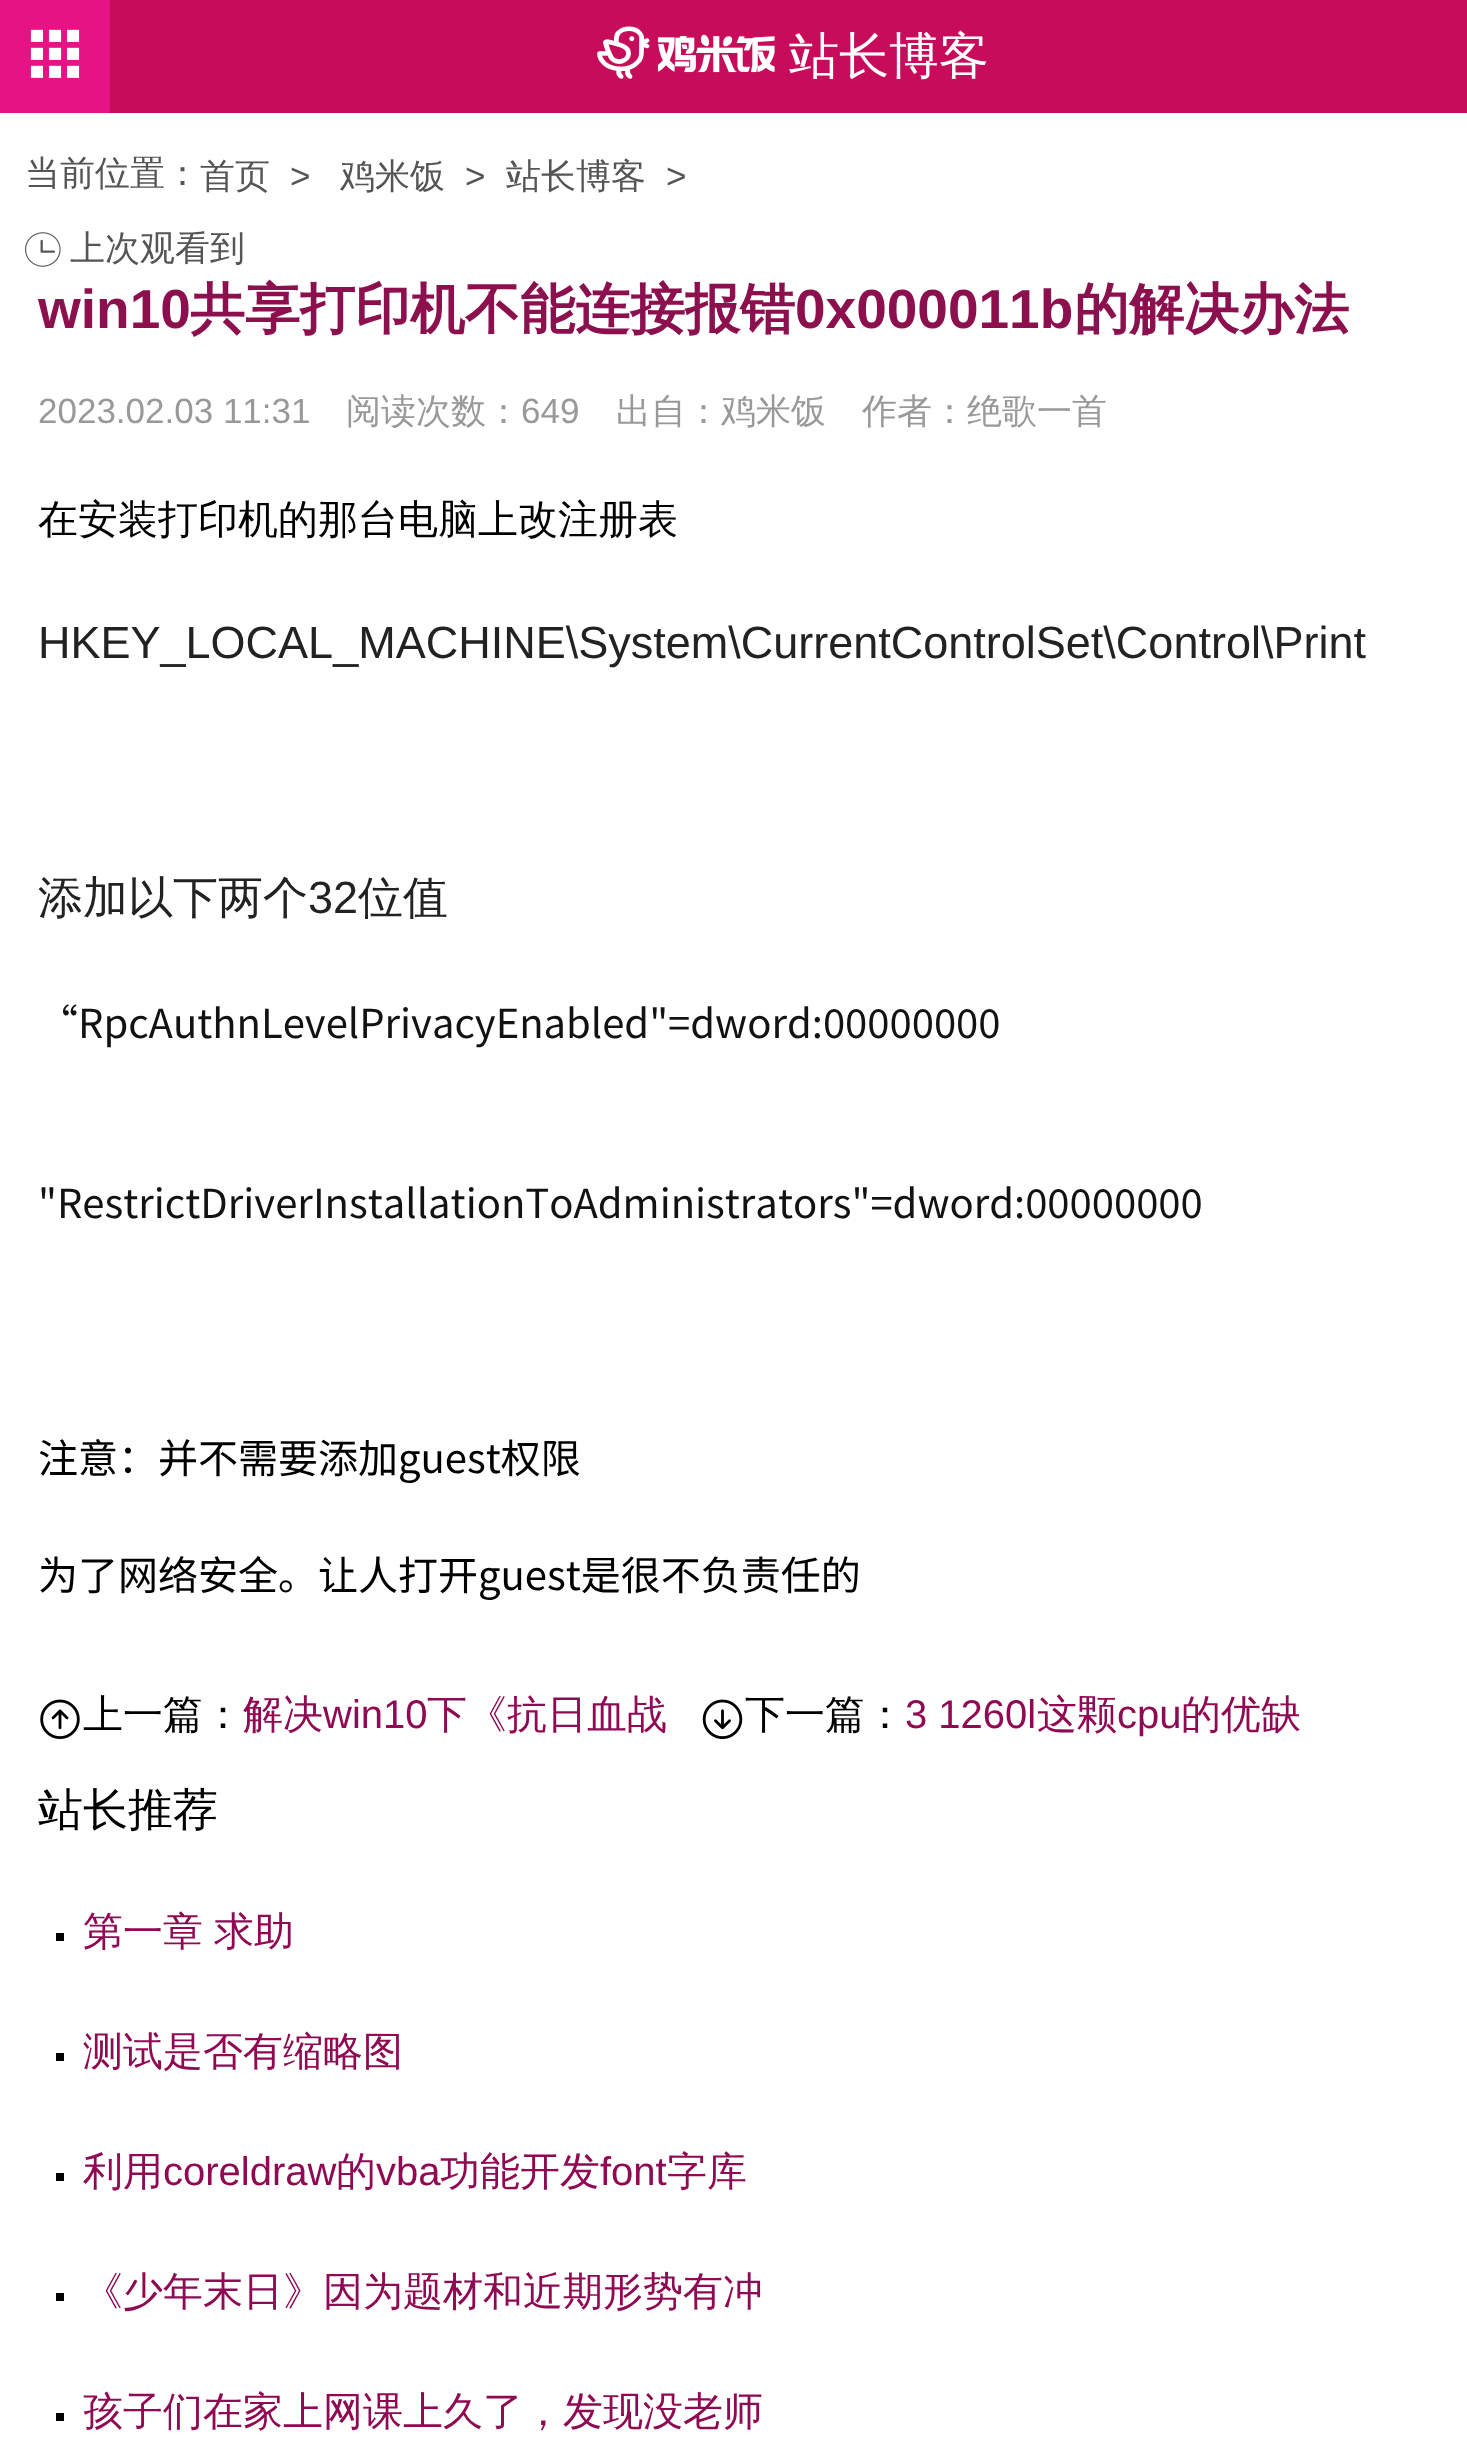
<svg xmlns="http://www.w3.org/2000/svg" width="1467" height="2458">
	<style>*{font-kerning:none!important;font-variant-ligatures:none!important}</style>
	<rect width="100%" height="100%" fill="#FFFFFF" />
	<rect x="0" y="0" width="110" height="113" fill="#E61385" />
	<image x="30" y="29" width="50" height="49" href="assets/img1.png" />
	<rect x="110" y="0" width="1357" height="113" fill="#C60C5B" />
	<image x="597" y="26" width="178" height="53" href="assets/img2.png" />
	<text x="789" y="73" font-family="WenQuanYi Zen Hei" font-size="50" font-weight="500" fill="#FFFFFF">站长博客</text>
	<g font-family="WenQuanYi Zen Hei" font-size="35" font-weight="500" fill="#555555">
		<text x="25" y="185">当前位置：</text>
		<text x="200" y="188">首页</text>
	</g>
	<text x="290" y="188" font-family="Liberation Sans" font-size="35" fill="#555555">&gt;</text>
	<text x="340" y="188" font-family="WenQuanYi Zen Hei" font-size="35" font-weight="500" fill="#555555">鸡米饭</text>
	<text x="465" y="188" font-family="Liberation Sans" font-size="35" fill="#555555">&gt;</text>
	<text x="506" y="188" font-family="WenQuanYi Zen Hei" font-size="35" font-weight="500" fill="#555555">站长博客</text>
	<text x="666" y="188" font-family="Liberation Sans" font-size="35" fill="#555555">&gt;</text>
	<image x="25" y="232" width="36" height="35" href="assets/img3.png" />
	<text x="70" y="260" font-family="WenQuanYi Zen Hei" font-size="35" font-weight="500" fill="#555555">上次观看到</text>
	<text x="38" y="328" font-family="Liberation Sans" font-size="55" font-weight="700" fill="#8C104D">win10</text>
	<text x="190" y="328" font-family="WenQuanYi Zen Hei" font-size="55" font-weight="700" fill="#8C104D">共享打印机不能连接报错</text>
	<text x="795" y="328" font-family="Liberation Sans" font-size="55" font-weight="700" fill="#8C104D">0x000011b</text>
	<text x="1074" y="328" font-family="WenQuanYi Zen Hei" font-size="55" font-weight="700" fill="#8C104D">的解决办法</text>
	<text x="38" y="423" font-family="Liberation Sans" font-size="35" fill="#999999">2023.02.03 11:31</text>
	<text x="346" y="423" font-family="WenQuanYi Zen Hei" font-size="35" font-weight="500" fill="#999999">阅读次数：</text>
	<text x="521" y="423" font-family="Liberation Sans" font-size="35" fill="#999999">649</text>
	<g font-family="WenQuanYi Zen Hei" font-size="35" font-weight="500" fill="#999999">
		<text x="616" y="423">出自：鸡米饭</text>
		<text x="862" y="423">作者：绝歌一首</text>
	</g>
	<text x="38" y="533" font-family="WenQuanYi Zen Hei" font-size="40" font-weight="500" fill="#000000">在安装打印机的那台电脑上改注册表</text>
	<text x="38" y="658" font-family="Liberation Sans" font-size="45" fill="#222222">HKEY_LOCAL_MACHINE\System\CurrentControlSet\Control\Print</text>
	<text x="38" y="913" font-family="WenQuanYi Zen Hei" font-size="45" font-weight="500" fill="#222222">添加以下两个</text>
	<text x="308" y="913" font-family="Liberation Sans" font-size="45" fill="#222222">32</text>
	<text x="358" y="913" font-family="WenQuanYi Zen Hei" font-size="45" font-weight="500" fill="#222222">位值</text>
	<g font-family="Noto Sans CJK SC" font-size="40" fill="#121212">
		<text x="38" y="1038">“RpcAuthnLevelPrivacyEnabled"=dword:00000000</text>
		<text x="38" y="1218">"RestrictDriverInstallationToAdministrators"=dword:00000000</text>
	</g>
	<g font-family="Noto Sans CJK SC" font-size="40" fill="#000000">
		<text x="38" y="1473">注意：并不需要添加guest权限</text>
		<text x="38" y="1590">为了网络安全。让人打开guest是很不负责任的</text>
	</g>
	<image x="40" y="1699" width="40" height="40" href="assets/img4.png" />
	<text x="83" y="1728" font-family="WenQuanYi Zen Hei" font-size="40" font-weight="500" fill="#000000">上一篇：</text>
	<text x="243" y="1728" font-family="WenQuanYi Zen Hei" font-size="40" font-weight="500" fill="#900A53">解决</text>
	<text x="323" y="1728" font-family="Liberation Sans" font-size="40" fill="#900A53">win10</text>
	<text x="427" y="1728" font-family="WenQuanYi Zen Hei" font-size="40" font-weight="500" fill="#900A53">下《抗日血战</text>
	<image x="702" y="1699" width="41" height="40" href="assets/img5.png" />
	<text x="745" y="1728" font-family="WenQuanYi Zen Hei" font-size="40" font-weight="500" fill="#000000">下一篇：</text>
	<text x="905" y="1728" font-family="Liberation Sans" font-size="40" fill="#900A53">3 1260l</text>
	<text x="1037" y="1728" font-family="WenQuanYi Zen Hei" font-size="40" font-weight="500" fill="#900A53">这颗</text>
	<text x="1117" y="1728" font-family="Liberation Sans" font-size="40" fill="#900A53">cpu</text>
	<text x="1181" y="1728" font-family="WenQuanYi Zen Hei" font-size="40" font-weight="500" fill="#900A53">的优缺</text>
	<text x="38" y="1825" font-family="WenQuanYi Zen Hei" font-size="45" font-weight="500" fill="#000000">站长推荐</text>
	<rect x="56" y="1933" width="8" height="8" fill="#000000" />
	<text x="83" y="1945" word-spacing="-1" font-family="WenQuanYi Zen Hei" font-size="40" font-weight="500" fill="#900A53">第一章 求助</text>
	<rect x="56" y="2053" width="8" height="8" fill="#000000" />
	<text x="83" y="2065" font-family="WenQuanYi Zen Hei" font-size="40" font-weight="500" fill="#900A53">测试是否有缩略图</text>
	<rect x="56" y="2173" width="8" height="8" fill="#000000" />
	<text x="83" y="2185" font-family="WenQuanYi Zen Hei" font-size="40" font-weight="500" fill="#900A53">利用</text>
	<text x="163" y="2185" font-family="Liberation Sans" font-size="40" fill="#900A53">coreldraw</text>
	<text x="336" y="2185" font-family="WenQuanYi Zen Hei" font-size="40" font-weight="500" fill="#900A53">的</text>
	<text x="376" y="2185" font-family="Liberation Sans" font-size="40" fill="#900A53">vba</text>
	<text x="440" y="2185" font-family="WenQuanYi Zen Hei" font-size="40" font-weight="500" fill="#900A53">功能开发</text>
	<text x="600" y="2185" font-family="Liberation Sans" font-size="40" fill="#900A53">font</text>
	<text x="667" y="2185" font-family="WenQuanYi Zen Hei" font-size="40" font-weight="500" fill="#900A53">字库</text>
	<rect x="56" y="2293" width="8" height="8" fill="#000000" />
	<text x="83" y="2305" font-family="WenQuanYi Zen Hei" font-size="40" font-weight="500" fill="#900A53">《少年末日》因为题材和近期形势有冲</text>
	<rect x="56" y="2413" width="8" height="8" fill="#000000" />
	<text x="83" y="2425" font-family="WenQuanYi Zen Hei" font-size="40" font-weight="500" fill="#900A53">孩子们在家上网课上久了，发现没老师</text>
</svg>
